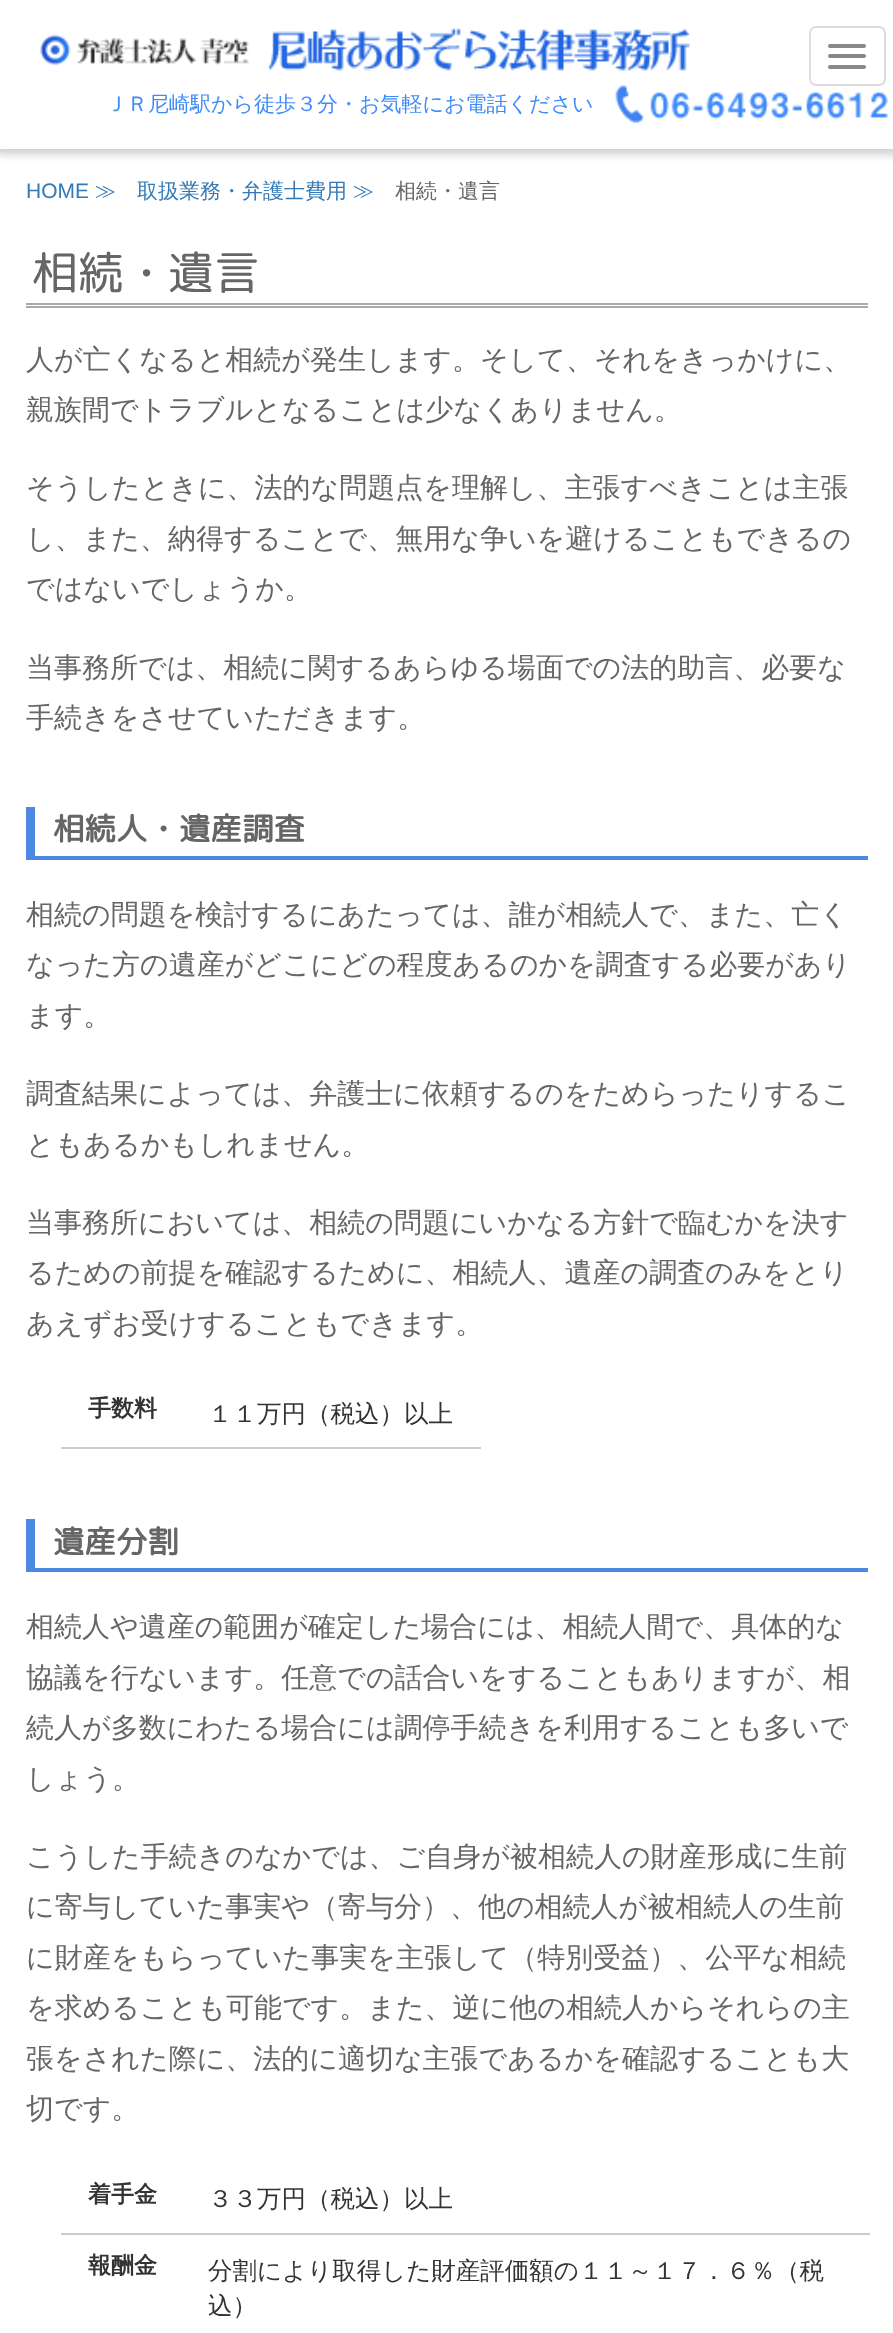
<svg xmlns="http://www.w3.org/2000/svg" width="893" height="2333">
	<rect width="100%" height="100%" fill="#FFFFFF" />
	<rect x="-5" y="-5" width="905" height="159" fill="#000000" fill-opacity="0.2" filter="blur(5px)" />
	<rect x="0" y="0" width="893" height="149" fill="#FFFFFF" />
	<image x="615" y="85" width="273" height="38" href="assets/img3.png" />
	<rect x="810" y="27" width="75" height="58" rx="6" fill="none" stroke="#DDDDDD" stroke-width="2" />
	<rect x="828" y="44" width="38" height="4" rx="2" fill="#888888" />
	<rect x="828" y="54" width="38" height="4" rx="2" fill="#888888" />
	<rect x="828" y="65" width="38" height="4" rx="2" fill="#888888" />
	<image x="40" y="34" width="209" height="32" href="assets/img1.png" />
	<image x="267" y="27" width="423" height="44" href="assets/img2.png" />
	<text x="106" y="111" font-family="WenQuanYi Zen Hei" font-size="21" font-weight="500" fill="#3F8BFA">ＪＲ尼崎駅から徒歩３分・お気軽にお電話ください</text>
	<text x="26" y="198" font-family="Liberation Sans" font-size="21" fill="#337AB7">HOME</text>
	<g font-family="WenQuanYi Zen Hei" font-size="21" font-weight="500" fill="#337AB7">
		<text x="95" y="198">≫</text>
		<text x="137" y="198">取扱業務・弁護士費用</text>
		<text x="353" y="198">≫</text>
	</g>
	<text x="395" y="198" font-family="WenQuanYi Zen Hei" font-size="21" font-weight="500" fill="#666666">相続・遺言</text>
	<rect x="26" y="303" width="842" height="2" fill="#AAAAAA" />
	<rect x="26" y="306" width="842" height="2" fill="#AAAAAA" />
	<text x="32" y="289" font-family="'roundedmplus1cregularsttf'" font-size="46" fill="#666666">相続</text>
	<text x="123" y="289" font-family="WenQuanYi Zen Hei" font-size="46" font-weight="500" fill="#666666">・</text>
	<text x="168" y="289" font-family="'roundedmplus1cregularsttf'" font-size="46" fill="#666666">遺言</text>
	<g font-family="WenQuanYi Zen Hei" font-size="28" font-weight="500" fill="#666666">
		<text x="26" y="369">人が亡くなると相続が発生します。そして、それをきっかけに、</text>
		<text x="26" y="419">親族間でトラブルとなることは少なくありません。</text>
		<text x="26" y="497">そうしたときに、法的な問題点を理解し、主張すべきことは主張</text>
		<text x="26" y="548">し、また、納得することで、無用な争いを避けることもできるの</text>
		<text x="26" y="598">ではないでしょうか。</text>
		<text x="26" y="677">当事務所では、相続に関するあらゆる場面での法的助言、必要な</text>
		<text x="26" y="727">手続きをさせていただきます。</text>
	</g>
	<rect x="26" y="856" width="842" height="4" fill="#4E89E1" />
	<rect x="26" y="807" width="9" height="49" fill="#4E89E1" />
	<text x="53" y="840" font-family="'roundedmplus1cregularsttf'" font-size="31.5" font-weight="700" fill="#666666">相続人</text>
	<text x="147" y="840" font-family="WenQuanYi Zen Hei" font-size="31.5" font-weight="700" fill="#666666">・</text>
	<text x="179" y="840" font-family="'roundedmplus1cregularsttf'" font-size="31.5" font-weight="700" fill="#666666">遺産調査</text>
	<g font-family="WenQuanYi Zen Hei" font-size="28" font-weight="500" fill="#666666">
		<text x="26" y="924">相続の問題を検討するにあたっては、誰が相続人で、また、亡く</text>
		<text x="26" y="974">なった方の遺産がどこにどの程度あるのかを調査する必要があり</text>
		<text x="26" y="1025">ます。</text>
		<text x="26" y="1103">調査結果によっては、弁護士に依頼するのをためらったりするこ</text>
		<text x="26" y="1154">ともあるかもしれません。</text>
		<text x="26" y="1232">当事務所においては、相続の問題にいかなる方針で臨むかを決す</text>
		<text x="26" y="1282">るための前提を確認するために、相続人、遺産の調査のみをとり</text>
		<text x="26" y="1333">あえずお受けすることもできます。</text>
	</g>
	<text x="88" y="1416" font-family="WenQuanYi Zen Hei" font-size="23" font-weight="700" fill="#333333">手数料</text>
	<rect x="61" y="1447" width="420" height="2" fill="#CCCCCC" />
	<text x="208" y="1422" font-family="WenQuanYi Zen Hei" font-size="24.5" font-weight="500" fill="#333333">１１万円（税込）以上</text>
	<rect x="35" y="1568" width="833" height="4" fill="#4E89E1" />
	<rect x="26" y="1519" width="9" height="53" fill="#4E89E1" />
	<text x="53" y="1553" font-family="'roundedmplus1cregularsttf'" font-size="31.5" font-weight="700" fill="#666666">遺産分割</text>
	<g font-family="WenQuanYi Zen Hei" font-size="28" font-weight="500" fill="#666666">
		<text x="26" y="1636">相続人や遺産の範囲が確定した場合には、相続人間で、具体的な</text>
		<text x="26" y="1687">協議を行ないます。任意での話合いをすることもありますが、相</text>
		<text x="26" y="1737">続人が多数にわたる場合には調停手続きを利用することも多いで</text>
		<text x="26" y="1788">しょう。</text>
		<text x="26" y="1866">こうした手続きのなかでは、ご自身が被相続人の財産形成に生前</text>
		<text x="26" y="1916">に寄与していた事実や（寄与分）、他の相続人が被相続人の生前</text>
		<text x="26" y="1967">に財産をもらっていた事実を主張して（特別受益）、公平な相続</text>
		<text x="26" y="2017">を求めることも可能です。また、逆に他の相続人からそれらの主</text>
		<text x="26" y="2068">張をされた際に、法的に適切な主張であるかを確認することも大</text>
		<text x="26" y="2118">切です。</text>
	</g>
	<text x="88" y="2202" font-family="WenQuanYi Zen Hei" font-size="23" font-weight="700" fill="#333333">着手金</text>
	<rect x="61" y="2233" width="809" height="2" fill="#CCCCCC" />
	<text x="208" y="2207" font-family="WenQuanYi Zen Hei" font-size="24.5" font-weight="500" fill="#333333">３３万円（税込）以上</text>
	<text x="88" y="2273" font-family="WenQuanYi Zen Hei" font-size="23" font-weight="700" fill="#333333">報酬金</text>
	<g font-family="WenQuanYi Zen Hei" font-size="24.5" font-weight="500" fill="#333333">
		<text x="208" y="2279">分割により取得した財産評価額の１１～１７．６％（税</text>
		<text x="208" y="2314">込）</text>
	</g>
</svg>
